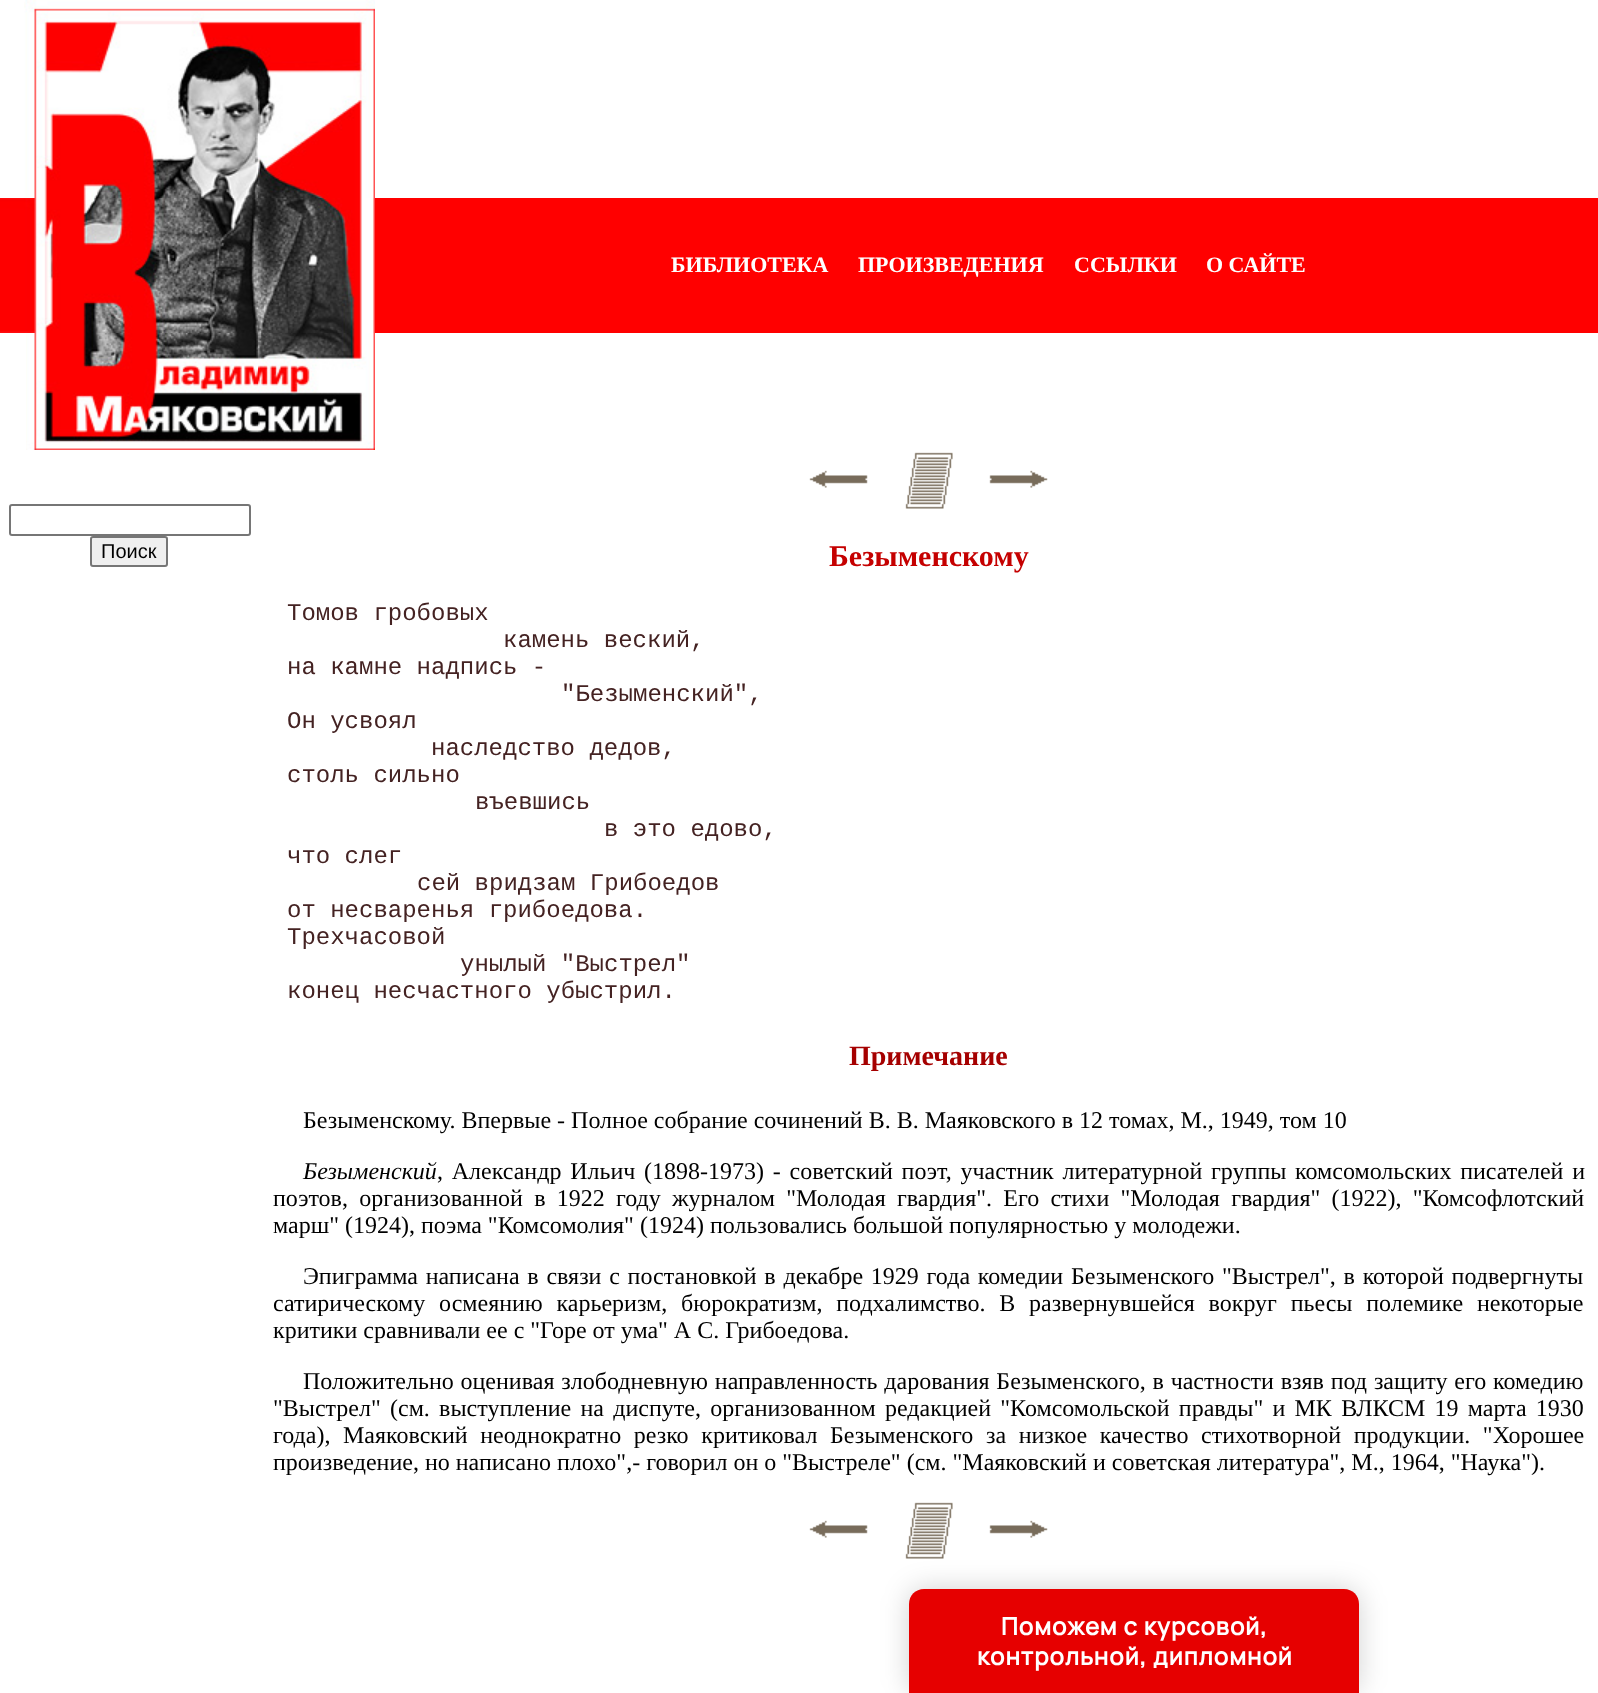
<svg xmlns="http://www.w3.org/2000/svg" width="1598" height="1693">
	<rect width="100%" height="100%" fill="#FFFFFF" />
	<image x="24" y="0" width="234" height="198" href="assets/img1.png" />
	<image x="258" y="0" width="117" height="198" href="assets/img2.png" />
	<image x="0" y="198" width="258" height="135" href="assets/img3.png" />
	<rect x="375" y="198" width="1223" height="135" fill="#FF0000" />
	<image x="258" y="198" width="117" height="135" href="assets/img4.png" />
	<g font-family="Liberation Serif" font-size="22" font-weight="700" fill="#FFFFFF">
		<text x="671" y="272">БИБЛИОТЕКА</text>
		<text x="858" y="272">ПРОИЗВЕДЕНИЯ</text>
		<text x="1074" y="272">ССЫЛКИ</text>
		<text x="1206" y="272">О САЙТЕ</text>
	</g>
	<image x="26" y="333" width="232" height="117" href="assets/img5.png" />
	<image x="258" y="333" width="117" height="117" href="assets/img6.png" />
	<rect x="10" y="505" width="240" height="30" rx="2" fill="none" stroke="#767676" stroke-width="2" />
	<rect x="91" y="537" width="76" height="29" rx="2" fill="#EFEFEF" stroke="#767676" stroke-width="2" />
	<text x="101" y="558" font-family="Liberation Sans" font-size="20" fill="#000000">Поиск</text>
	<image x="809" y="470" width="59" height="18" href="assets/img7.png" />
	<image x="905" y="452" width="48" height="57" href="assets/img8.png" />
	<image x="989" y="470" width="59" height="18" href="assets/img9.png" />
	<text x="829" y="566" font-family="Liberation Serif" font-size="30" font-weight="700" fill="#C50000">Безыменскому</text>
	<g font-family="Liberation Mono" font-size="24" fill="#442222">
		<text x="287" y="620">Томов гробовых</text>
		<text x="503" y="647">камень веский,</text>
		<text x="287" y="674">на камне надпись -</text>
		<text x="561" y="701">"Безыменский",</text>
		<text x="287" y="728">Он усвоял</text>
		<text x="431" y="755">наследство дедов,</text>
		<text x="287" y="782">столь сильно</text>
		<text x="475" y="809">въевшись</text>
		<text x="604" y="836">в это едово,</text>
		<text x="287" y="863">что слег</text>
		<text x="417" y="890">сей вридзам Грибоедов</text>
		<text x="287" y="917">от несваренья грибоедова.</text>
		<text x="287" y="944">Трехчасовой</text>
		<text x="460" y="971">унылый "Выстрел"</text>
		<text x="287" y="998">конец несчастного убыстрил.</text>
	</g>
	<text x="849" y="1065" font-family="Liberation Serif" font-size="28" font-weight="700" fill="#A50000">Примечание</text>
	<text x="303" y="1128" font-family="Liberation Serif" font-size="24" fill="#000000">Безыменскому. Впервые - Полное собрание сочинений В. В. Маяковского в 12 томах, М., 1949, том 10</text>
	<text x="303" y="1179" font-family="Liberation Serif" font-size="24" font-style="italic" fill="#000000">Безыменский</text>
	<g font-family="Liberation Serif" font-size="24" fill="#000000">
		<text x="437" y="1179" word-spacing="2.75">, Александр Ильич (1898-1973) - советский поэт, участник литературной группы комсомольских писателей и</text>
		<text x="273" y="1206" word-spacing="5.25">поэтов, организованной в 1922 году журналом "Молодая гвардия". Его стихи "Молодая гвардия" (1922), "Комсофлотский</text>
		<text x="273" y="1233">марш" (1924), поэма "Комсомолия" (1924) пользовались большой популярностью у молодежи.</text>
		<text x="303" y="1284" word-spacing="1.75">Эпиграмма написана в связи с постановкой в декабре 1929 года комедии Безыменского "Выстрел", в которой подвергнуты</text>
		<text x="273" y="1311" word-spacing="7.75">сатирическому осмеянию карьеризм, бюрократизм, подхалимство. В развернувшейся вокруг пьесы полемике некоторые</text>
		<text x="273" y="1338">критики сравнивали ее с "Горе от ума" А С. Грибоедова.</text>
		<text x="303" y="1389" word-spacing="0.8">Положительно оценивая злободневную направленность дарования Безыменского, в частности взяв под защиту его комедию</text>
		<text x="273" y="1416" word-spacing="3.25">"Выстрел" (см. выступление на диспуте, организованном редакцией "Комсомольской правды" и МК ВЛКСМ 19 марта 1930</text>
		<text x="273" y="1443" word-spacing="6.6">года), Маяковский неоднократно резко критиковал Безыменского за низкое качество стихотворной продукции. "Хорошее</text>
		<text x="273" y="1470">произведение, но написано плохо",- говорил он о "Выстреле" (см. "Маяковский и советская литература", М., 1964, "Наука").</text>
	</g>
	<image x="809" y="1520" width="59" height="18" href="assets/img7.png" />
	<image x="905" y="1502" width="48" height="57" href="assets/img8.png" />
	<image x="989" y="1520" width="59" height="18" href="assets/img9.png" />
	<rect x="909" y="1589" width="450" height="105" rx="15" fill="#000000" fill-opacity="0.18" filter="blur(14px)" />
	<path d="M924 1589H1344C1352.5 1589 1359 1595.5 1359 1604V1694H909V1604C909 1595.5 915.5 1589 924 1589Z" fill="#E60000" />
	<g font-family="Manrope" font-size="24" font-weight="700" letter-spacing="1" fill="#FFFFFF">
		<text x="1001" y="1635">Поможем с курсовой,</text>
		<text x="977" y="1665">контрольной, дипломной</text>
	</g>
</svg>
